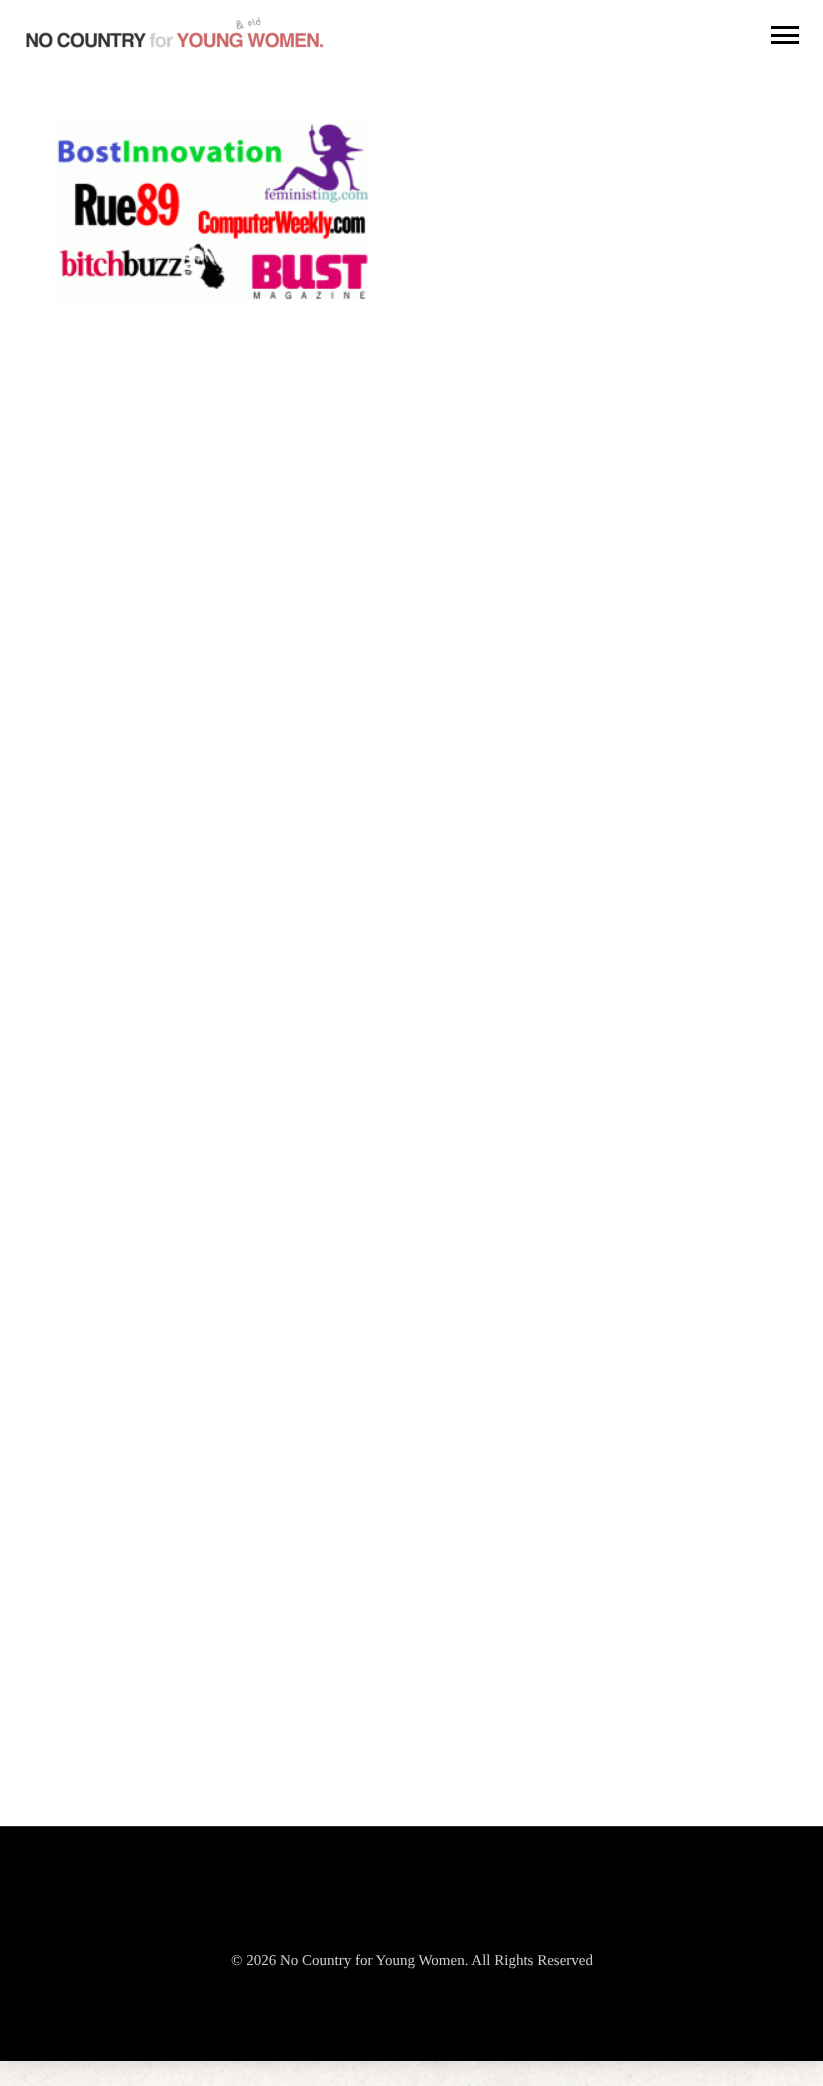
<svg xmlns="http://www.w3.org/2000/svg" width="823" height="2086">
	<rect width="100%" height="100%" fill="#FFFFFF" />
	<image x="0" y="2061" width="823" height="25" href="assets/img1.png" />
	<rect x="0" y="0" width="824" height="2061" fill="#000000" fill-opacity="0.15" filter="blur(9.5px)" />
	<rect x="0" y="0" width="823" height="1826" fill="#FFFFFF" />
	<image x="26" y="17" width="298" height="31" href="assets/img2.png" />
	<rect x="771" y="26" width="28" height="3" fill="#000000" />
	<rect x="771" y="41" width="28" height="3" fill="#000000" />
	<rect x="771" y="34" width="28" height="3" fill="#000000" />
	<image x="57" y="123" width="312" height="178" href="assets/img3.png" />
	<rect x="0" y="1827" width="823" height="234" fill="#000000" />
	<rect x="0" y="1826" width="823" height="1" fill="#2E2E2E" />
	<text x="231" y="1965" font-family="Liberation Serif" font-size="15" fill="#CCCCCC">© 2026 No Country for Young Women. All Rights Reserved</text>
</svg>
